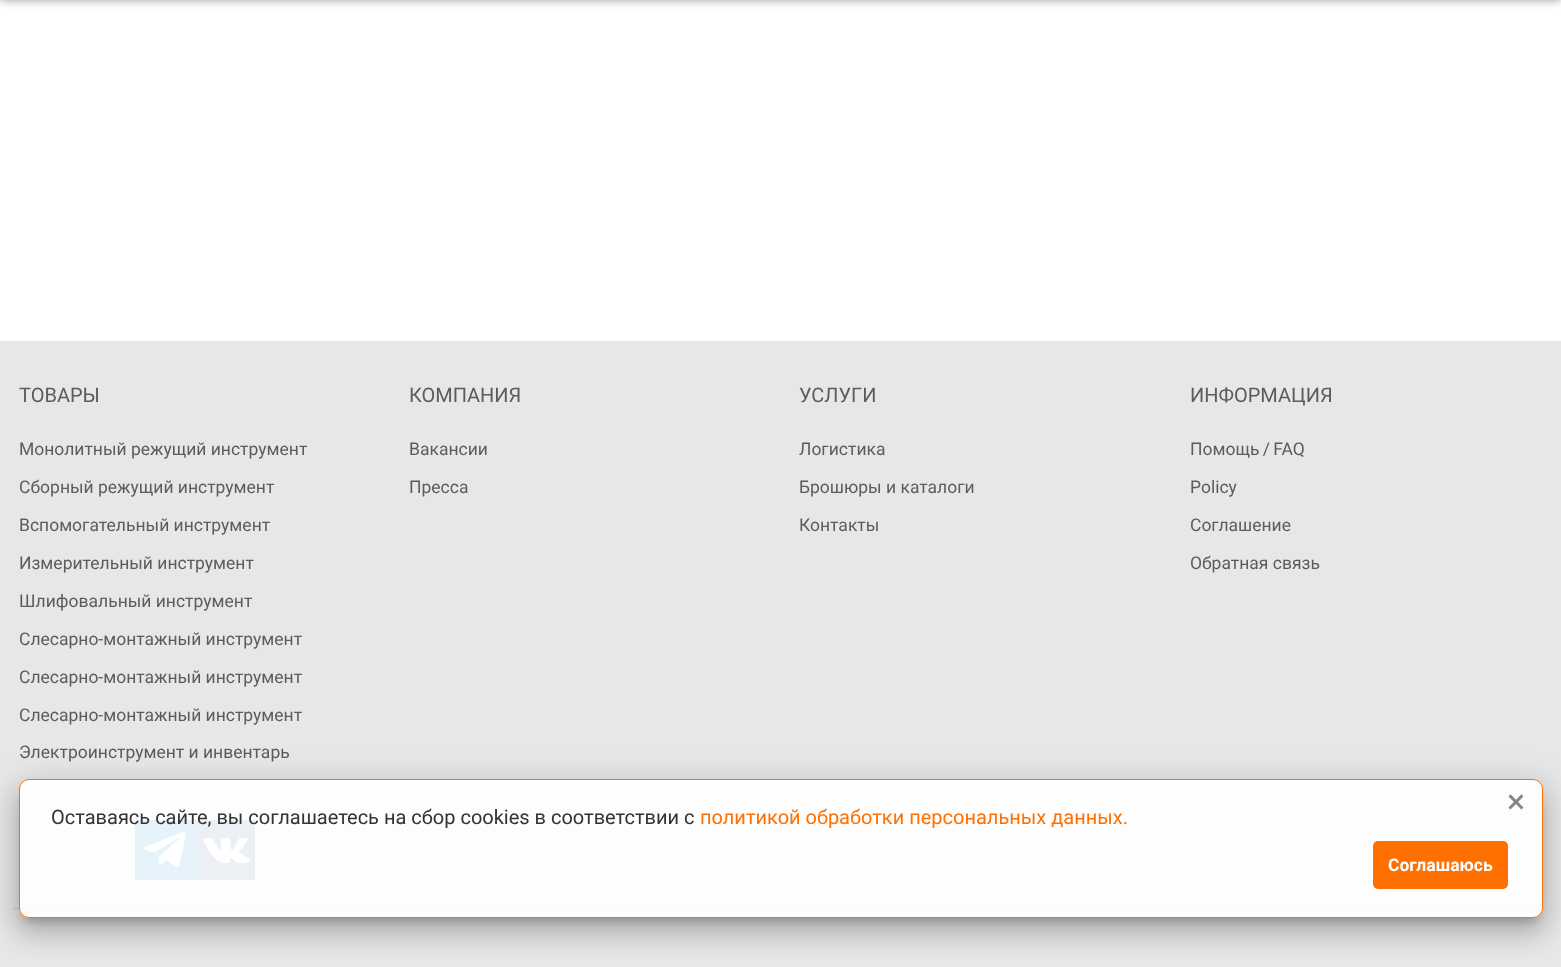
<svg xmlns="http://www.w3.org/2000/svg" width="1561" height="967">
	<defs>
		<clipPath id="clip1"><path d="M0 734H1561V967H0ZM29 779H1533C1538.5 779 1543 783.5 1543 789V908C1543 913.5 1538.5 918 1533 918H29C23.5 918 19 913.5 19 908V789C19 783.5 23.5 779 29 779Z" clip-rule="evenodd" /></clipPath>
		<clipPath id="clip2"><path d="M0 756H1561V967H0ZM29 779H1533C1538.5 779 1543 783.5 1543 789V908C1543 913.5 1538.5 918 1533 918H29C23.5 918 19 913.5 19 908V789C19 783.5 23.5 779 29 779Z" clip-rule="evenodd" /></clipPath>
		<clipPath id="clip3"><path d="M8 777H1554V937H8ZM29 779H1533C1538.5 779 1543 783.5 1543 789V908C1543 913.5 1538.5 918 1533 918H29C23.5 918 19 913.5 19 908V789C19 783.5 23.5 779 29 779Z" clip-rule="evenodd" /></clipPath>
	</defs>
	<rect width="100%" height="100%" fill="#FFFFFF" />
	<rect x="0" y="-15" width="1561" height="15" fill="#000000" fill-opacity="0.4" filter="blur(5px)" />
	<rect x="0" y="341" width="1561" height="626" fill="#E7E7E7" />
	<text x="19" y="402" font-family="Roboto" font-size="20" fill="#5C5C5C">ТОВАРЫ</text>
	<g font-family="Roboto" font-size="17.5" fill="#5C5C5C">
		<text x="19" y="455">Монолитный режущий инструмент</text>
		<text x="19" y="493">Сборный режущий инструмент</text>
		<text x="19" y="531">Вспомогательный инструмент</text>
		<text x="19" y="569">Измерительный инструмент</text>
		<text x="19" y="607">Шлифовальный инструмент</text>
		<text x="19" y="645">Слесарно-монтажный инструмент</text>
		<text x="19" y="683">Слесарно-монтажный инструмент</text>
		<text x="19" y="721">Слесарно-монтажный инструмент</text>
		<text x="19" y="758">Электроинструмент и инвентарь</text>
	</g>
	<text x="409" y="402" font-family="Roboto" font-size="20" fill="#5C5C5C">КОМПАНИЯ</text>
	<g font-family="Roboto" font-size="17.5" fill="#5C5C5C">
		<text x="409" y="455">Вакансии</text>
		<text x="409" y="493">Пресса</text>
	</g>
	<text x="799" y="402" font-family="Roboto" font-size="20" fill="#5C5C5C">УСЛУГИ</text>
	<g font-family="Roboto" font-size="17.5" fill="#5C5C5C">
		<text x="799" y="455">Логистика</text>
		<text x="799" y="493">Брошюры и каталоги</text>
		<text x="799" y="531">Контакты</text>
	</g>
	<text x="1190" y="402" font-family="Roboto" font-size="20" fill="#5C5C5C">ИНФОРМАЦИЯ</text>
	<g font-family="Roboto" font-size="17.5" fill="#5C5C5C">
		<text x="1190" y="455" word-spacing="-1">Помощь / FAQ</text>
		<text x="1190" y="493">Policy</text>
		<text x="1190" y="531">Соглашение</text>
		<text x="1190" y="569">Обратная связь</text>
	</g>
	<rect x="135" y="820" width="60" height="60" fill="#0088CC" />
	<image x="144" y="832" width="42" height="36" href="assets/img1.png" />
	<rect x="195" y="820" width="60" height="60" fill="#43668F" />
	<image x="203" y="838" width="47" height="26" href="assets/img2.png" />
	<rect x="13" y="908" width="1530" height="1" fill="#CDCDCD" />
	<g clip-path="url(#clip1)">
		<rect x="14" y="780" width="1534" height="149" rx="15" fill="#000000" fill-opacity="0.12" filter="blur(15px)" />
	</g>
	<g clip-path="url(#clip2)">
		<rect x="16" y="793" width="1529" height="143" rx="13" fill="#000000" fill-opacity="0.14" filter="blur(12px)" />
	</g>
	<g clip-path="url(#clip3)">
		<rect x="24" y="793" width="1514" height="128" rx="5" fill="#000000" fill-opacity="0.2" filter="blur(5px)" />
	</g>
	<rect x="19.5" y="779.5" width="1523" height="138" rx="9.5" fill="#FFFFFF" fill-opacity="0.9" stroke="#FF7000" />
	<text x="1507" y="813" font-family="Roboto" font-size="34" fill="#848484">×</text>
	<text x="51" y="824" font-family="Roboto" font-size="20" fill="#333333">Оставаясь сайте, вы соглашаетесь на сбор cookies в соответствии с</text>
	<text x="700" y="824" font-family="Roboto" font-size="20" fill="#FF7000">политикой обработки персональных данных.</text>
	<rect x="1373" y="841" width="135" height="48" rx="5" fill="#FF7000" />
	<text x="1388" y="871" font-family="Roboto" font-size="17.5" font-weight="700" fill="#FFFFFF">Соглашаюсь</text>
</svg>
